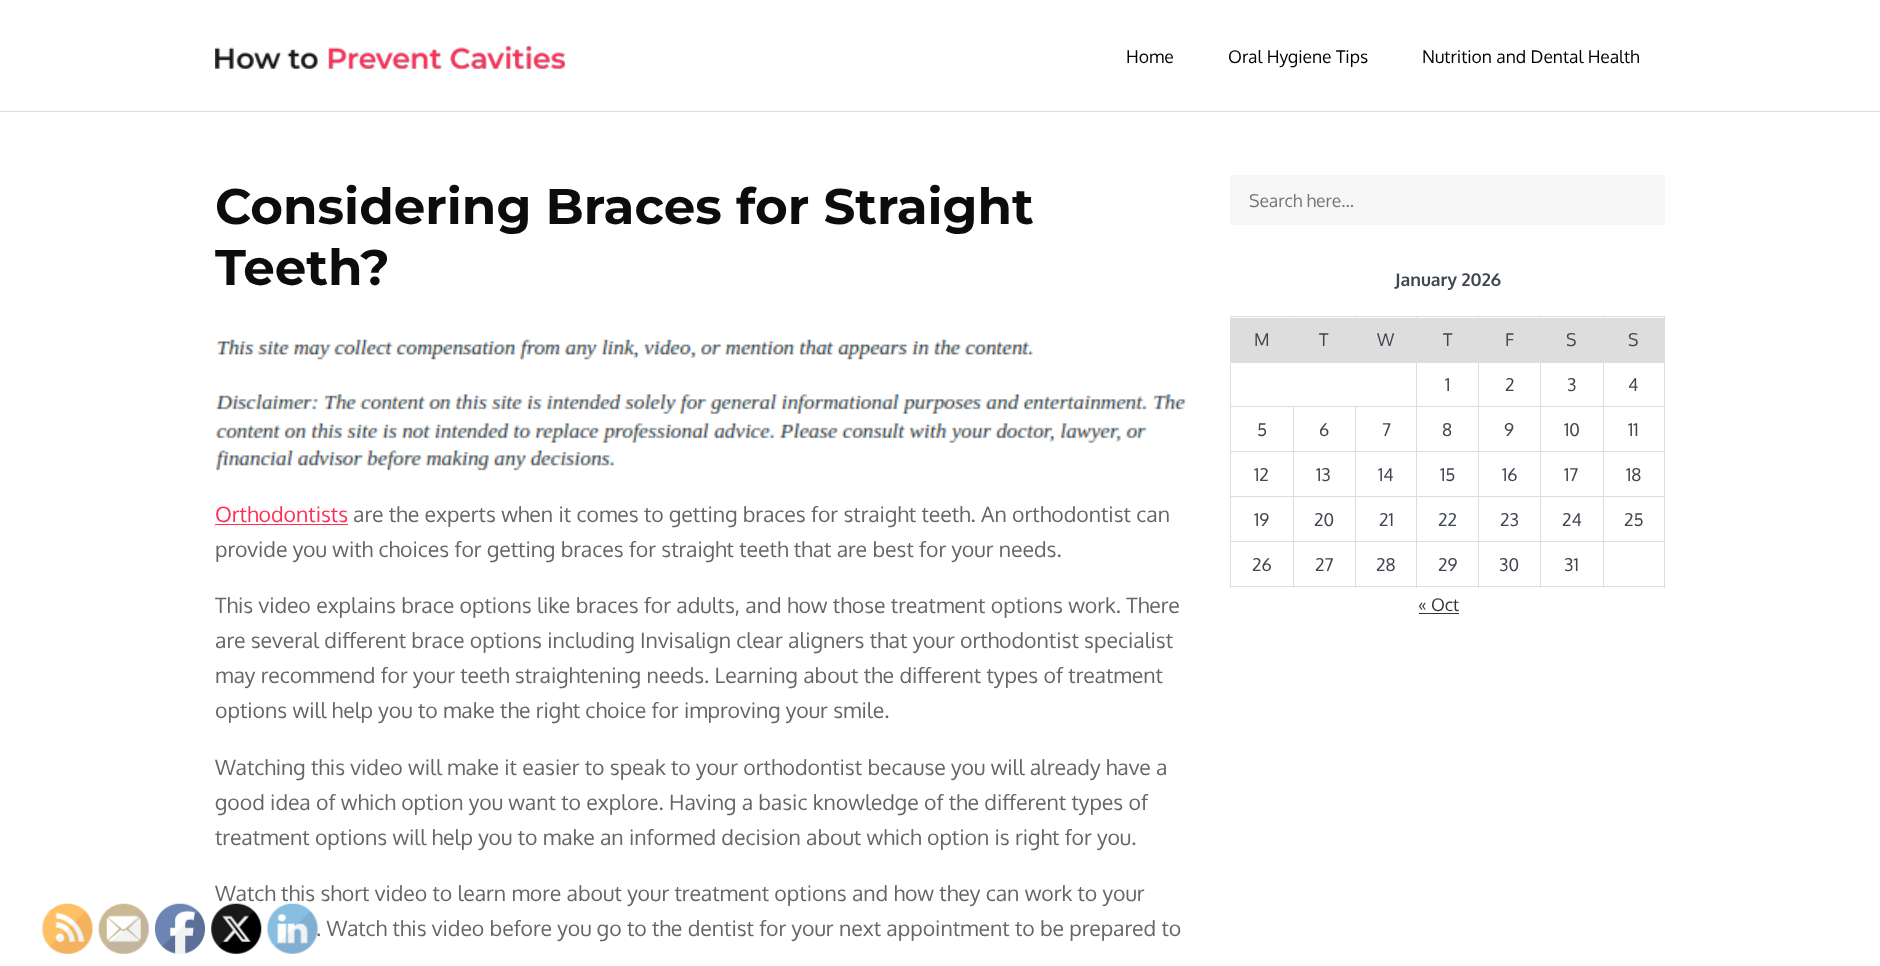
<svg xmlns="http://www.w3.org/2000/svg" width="1880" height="966">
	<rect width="100%" height="100%" fill="#FFFFFF" />
	<rect x="0" y="111" width="1880" height="1" fill="#DDDDDD" />
	<image x="215" y="46" width="350" height="23" href="assets/img1.png" />
	<g font-family="Oxygen" font-size="17.5" fill="#000000">
		<text x="1126" y="63">Home</text>
		<text x="1228" y="63">Oral Hygiene Tips</text>
		<text x="1422" y="63">Nutrition and Dental Health</text>
	</g>
	<image x="42" y="903" width="51" height="51" href="assets/img2.png" />
	<image x="98" y="903" width="51" height="51" href="assets/img3.png" />
	<image x="155" y="903" width="50" height="51" href="assets/img4.png" />
	<text x="215" y="901" font-family="Oxygen" font-size="21.25" fill="#666666">Watch this short video to learn more about your treatment options and how they can work to your</text>
	<image x="211" y="903" width="51" height="51" href="assets/img5.png" />
	<text x="316" y="936" font-family="Oxygen" font-size="21.25" fill="#666666">. Watch this video before you go to the dentist for your next appointment to be prepared to</text>
	<image x="267" y="903" width="51" height="51" href="assets/img6.png" />
	<g font-family="Montserrat" font-size="50" font-weight="700" fill="#0C0C0C">
		<text x="215" y="224">Considering Braces for Straight</text>
		<text x="215" y="285">Teeth?</text>
	</g>
	<image x="215" y="339" width="972" height="132" href="assets/img7.png" />
	<text x="215" y="522" font-family="Oxygen" font-size="21.25" fill="#FF2E55">Orthodontists</text>
	<rect x="215" y="524" width="133" height="1" fill="#FF2E55" />
	<g font-family="Oxygen" font-size="21.25" fill="#666666">
		<text x="353" y="522">are the experts when it comes to getting braces for straight teeth. An orthodontist can</text>
		<text x="215" y="557">provide you with choices for getting braces for straight teeth that are best for your needs.</text>
		<text x="215" y="613">This video explains brace options like braces for adults, and how those treatment options work. There</text>
		<text x="215" y="648">are several different brace options including Invisalign clear aligners that your orthodontist specialist</text>
		<text x="215" y="683">may recommend for your teeth straightening needs. Learning about the different types of treatment</text>
		<text x="215" y="718">options will help you to make the right choice for improving your smile.</text>
		<text x="215" y="775">Watching this video will make it easier to speak to your orthodontist because you will already have a</text>
		<text x="215" y="810">good idea of which option you want to explore. Having a basic knowledge of the different types of</text>
		<text x="215" y="845">treatment options will help you to make an informed decision about which option is right for you.</text>
	</g>
	<rect x="1230" y="175" width="435" height="50" fill="#F6F6F6" />
	<text x="1249" y="207" font-family="Oxygen" font-size="17.5" fill="#757575">Search here...</text>
	<text x="1395" y="286" font-family="Oxygen" font-size="17.5" font-weight="700" fill="#40464D">January 2026</text>
	<rect x="1231" y="318" width="62" height="45" fill="#DDDDDD" />
	<rect x="1603" y="316" width="62" height="1" fill="#DDDDDD" />
	<rect x="1604" y="318" width="60" height="45" fill="#DDDDDD" />
	<rect x="1603" y="361" width="62" height="1" fill="#DDDDDD" />
	<rect x="1603" y="406" width="62" height="1" fill="#DDDDDD" />
	<rect x="1603" y="451" width="62" height="1" fill="#DDDDDD" />
	<rect x="1603" y="496" width="62" height="1" fill="#DDDDDD" />
	<rect x="1603" y="541" width="62" height="1" fill="#DDDDDD" />
	<rect x="1664" y="541" width="1" height="47" fill="#DDDDDD" />
	<rect x="1603" y="586" width="62" height="1" fill="#DDDDDD" />
	<rect x="1603" y="541" width="1" height="47" fill="#DDDDDD" />
	<rect x="1540" y="541" width="64" height="1" fill="#DDDDDD" />
	<rect x="1603" y="496" width="1" height="47" fill="#DDDDDD" />
	<rect x="1540" y="496" width="64" height="1" fill="#DDDDDD" />
	<rect x="1603" y="451" width="1" height="47" fill="#DDDDDD" />
	<rect x="1540" y="451" width="64" height="1" fill="#DDDDDD" />
	<rect x="1603" y="406" width="1" height="47" fill="#DDDDDD" />
	<rect x="1540" y="406" width="64" height="1" fill="#DDDDDD" />
	<rect x="1603" y="361" width="1" height="47" fill="#DDDDDD" />
	<rect x="1603" y="316" width="1" height="47" fill="#DDDDDD" />
	<rect x="1540" y="316" width="64" height="1" fill="#DDDDDD" />
	<rect x="1540" y="586" width="64" height="1" fill="#DDDDDD" />
	<rect x="1540" y="541" width="1" height="47" fill="#DDDDDD" />
	<rect x="1478" y="541" width="63" height="1" fill="#DDDDDD" />
	<rect x="1540" y="496" width="1" height="47" fill="#DDDDDD" />
	<rect x="1478" y="496" width="63" height="1" fill="#DDDDDD" />
	<rect x="1540" y="451" width="1" height="47" fill="#DDDDDD" />
	<rect x="1478" y="451" width="63" height="1" fill="#DDDDDD" />
	<rect x="1540" y="406" width="1" height="47" fill="#DDDDDD" />
	<rect x="1478" y="406" width="63" height="1" fill="#DDDDDD" />
	<rect x="1540" y="361" width="1" height="47" fill="#DDDDDD" />
	<rect x="1540" y="316" width="1" height="47" fill="#DDDDDD" />
	<rect x="1478" y="316" width="63" height="1" fill="#DDDDDD" />
	<rect x="1478" y="586" width="63" height="1" fill="#DDDDDD" />
	<rect x="1478" y="541" width="1" height="47" fill="#DDDDDD" />
	<rect x="1416" y="541" width="63" height="1" fill="#DDDDDD" />
	<rect x="1478" y="496" width="1" height="47" fill="#DDDDDD" />
	<rect x="1416" y="496" width="63" height="1" fill="#DDDDDD" />
	<rect x="1478" y="451" width="1" height="47" fill="#DDDDDD" />
	<rect x="1416" y="451" width="63" height="1" fill="#DDDDDD" />
	<rect x="1478" y="406" width="1" height="47" fill="#DDDDDD" />
	<rect x="1416" y="406" width="63" height="1" fill="#DDDDDD" />
	<rect x="1478" y="361" width="1" height="47" fill="#DDDDDD" />
	<rect x="1478" y="316" width="1" height="47" fill="#DDDDDD" />
	<rect x="1416" y="316" width="63" height="1" fill="#DDDDDD" />
	<rect x="1416" y="586" width="63" height="1" fill="#DDDDDD" />
	<rect x="1416" y="541" width="1" height="47" fill="#DDDDDD" />
	<rect x="1355" y="541" width="63" height="1" fill="#DDDDDD" />
	<rect x="1416" y="496" width="1" height="47" fill="#DDDDDD" />
	<rect x="1355" y="496" width="63" height="1" fill="#DDDDDD" />
	<rect x="1416" y="451" width="1" height="47" fill="#DDDDDD" />
	<rect x="1355" y="451" width="63" height="1" fill="#DDDDDD" />
	<rect x="1416" y="406" width="1" height="47" fill="#DDDDDD" />
	<rect x="1355" y="406" width="63" height="1" fill="#DDDDDD" />
	<rect x="1416" y="361" width="1" height="47" fill="#DDDDDD" />
	<rect x="1416" y="316" width="1" height="47" fill="#DDDDDD" />
	<rect x="1355" y="316" width="63" height="1" fill="#DDDDDD" />
	<rect x="1294" y="318" width="61" height="45" fill="#DDDDDD" />
	<rect x="1230" y="361" width="126" height="1" fill="#DDDDDD" />
	<rect x="1355" y="316" width="1" height="47" fill="#DDDDDD" />
	<rect x="1293" y="316" width="63" height="1" fill="#DDDDDD" />
	<rect x="1293" y="316" width="1" height="47" fill="#DDDDDD" />
	<rect x="1230" y="316" width="64" height="1" fill="#DDDDDD" />
	<rect x="1355" y="586" width="63" height="1" fill="#DDDDDD" />
	<rect x="1355" y="541" width="1" height="47" fill="#DDDDDD" />
	<rect x="1293" y="541" width="63" height="1" fill="#DDDDDD" />
	<rect x="1355" y="496" width="1" height="47" fill="#DDDDDD" />
	<rect x="1293" y="496" width="63" height="1" fill="#DDDDDD" />
	<rect x="1355" y="451" width="1" height="47" fill="#DDDDDD" />
	<rect x="1293" y="451" width="63" height="1" fill="#DDDDDD" />
	<rect x="1355" y="406" width="1" height="47" fill="#DDDDDD" />
	<rect x="1293" y="406" width="63" height="1" fill="#DDDDDD" />
	<rect x="1293" y="586" width="63" height="1" fill="#DDDDDD" />
	<rect x="1293" y="541" width="1" height="47" fill="#DDDDDD" />
	<rect x="1230" y="541" width="64" height="1" fill="#DDDDDD" />
	<rect x="1293" y="496" width="1" height="47" fill="#DDDDDD" />
	<rect x="1230" y="496" width="64" height="1" fill="#DDDDDD" />
	<rect x="1293" y="451" width="1" height="47" fill="#DDDDDD" />
	<rect x="1230" y="451" width="64" height="1" fill="#DDDDDD" />
	<rect x="1293" y="406" width="1" height="47" fill="#DDDDDD" />
	<rect x="1230" y="406" width="64" height="1" fill="#DDDDDD" />
	<rect x="1230" y="586" width="64" height="1" fill="#DDDDDD" />
	<rect x="1230" y="541" width="1" height="47" fill="#DDDDDD" />
	<rect x="1230" y="496" width="1" height="47" fill="#DDDDDD" />
	<rect x="1230" y="451" width="1" height="47" fill="#DDDDDD" />
	<rect x="1230" y="406" width="1" height="47" fill="#DDDDDD" />
	<rect x="1230" y="361" width="1" height="47" fill="#DDDDDD" />
	<rect x="1230" y="316" width="1" height="47" fill="#DDDDDD" />
	<g font-family="Oxygen" font-size="17.5" fill="#40464D">
		<text x="1254" y="346">M</text>
		<text x="1319" y="346">T</text>
	</g>
	<rect x="1356" y="318" width="60" height="45" fill="#DDDDDD" />
	<text x="1377" y="346" font-family="Oxygen" font-size="17.5" fill="#40464D">W</text>
	<rect x="1417" y="318" width="61" height="45" fill="#DDDDDD" />
	<text x="1443" y="346" font-family="Oxygen" font-size="17.5" fill="#40464D">T</text>
	<rect x="1479" y="318" width="61" height="45" fill="#DDDDDD" />
	<text x="1505" y="346" font-family="Oxygen" font-size="17.5" fill="#40464D">F</text>
	<rect x="1541" y="318" width="62" height="45" fill="#DDDDDD" />
	<text x="1566" y="346" font-family="Oxygen" font-size="17.5" fill="#40464D">S</text>
	<rect x="1664" y="496" width="1" height="47" fill="#DDDDDD" />
	<rect x="1664" y="451" width="1" height="47" fill="#DDDDDD" />
	<rect x="1664" y="406" width="1" height="47" fill="#DDDDDD" />
	<rect x="1664" y="361" width="1" height="47" fill="#DDDDDD" />
	<rect x="1664" y="316" width="1" height="47" fill="#DDDDDD" />
	<g font-family="Oxygen" font-size="17.5" fill="#40464D">
		<text x="1628" y="346">S</text>
		<text x="1445" y="391">1</text>
		<text x="1505" y="391">2</text>
		<text x="1567" y="391">3</text>
		<text x="1628" y="391">4</text>
		<text x="1257" y="436">5</text>
		<text x="1319" y="436">6</text>
		<text x="1382" y="436">7</text>
		<text x="1442" y="436">8</text>
		<text x="1504" y="436">9</text>
		<text x="1564" y="436">10</text>
		<text x="1628" y="436">11</text>
		<text x="1254" y="481">12</text>
		<text x="1316" y="481">13</text>
		<text x="1378" y="481">14</text>
		<text x="1440" y="481">15</text>
		<text x="1502" y="481">16</text>
		<text x="1564" y="481">17</text>
		<text x="1626" y="481">18</text>
		<text x="1254" y="526">19</text>
		<text x="1314" y="526">20</text>
		<text x="1379" y="526">21</text>
		<text x="1438" y="526">22</text>
		<text x="1500" y="526">23</text>
		<text x="1562" y="526">24</text>
		<text x="1624" y="526">25</text>
		<text x="1252" y="571">26</text>
		<text x="1315" y="571">27</text>
		<text x="1376" y="571">28</text>
		<text x="1438" y="571">29</text>
		<text x="1499" y="571">30</text>
		<text x="1564" y="571">31</text>
	</g>
	<text x="1418" y="611" font-family="Oxygen" font-size="17.5" fill="#333333">« Oct</text>
	<rect x="1419" y="613" width="40" height="1" fill="#333333" />
</svg>
